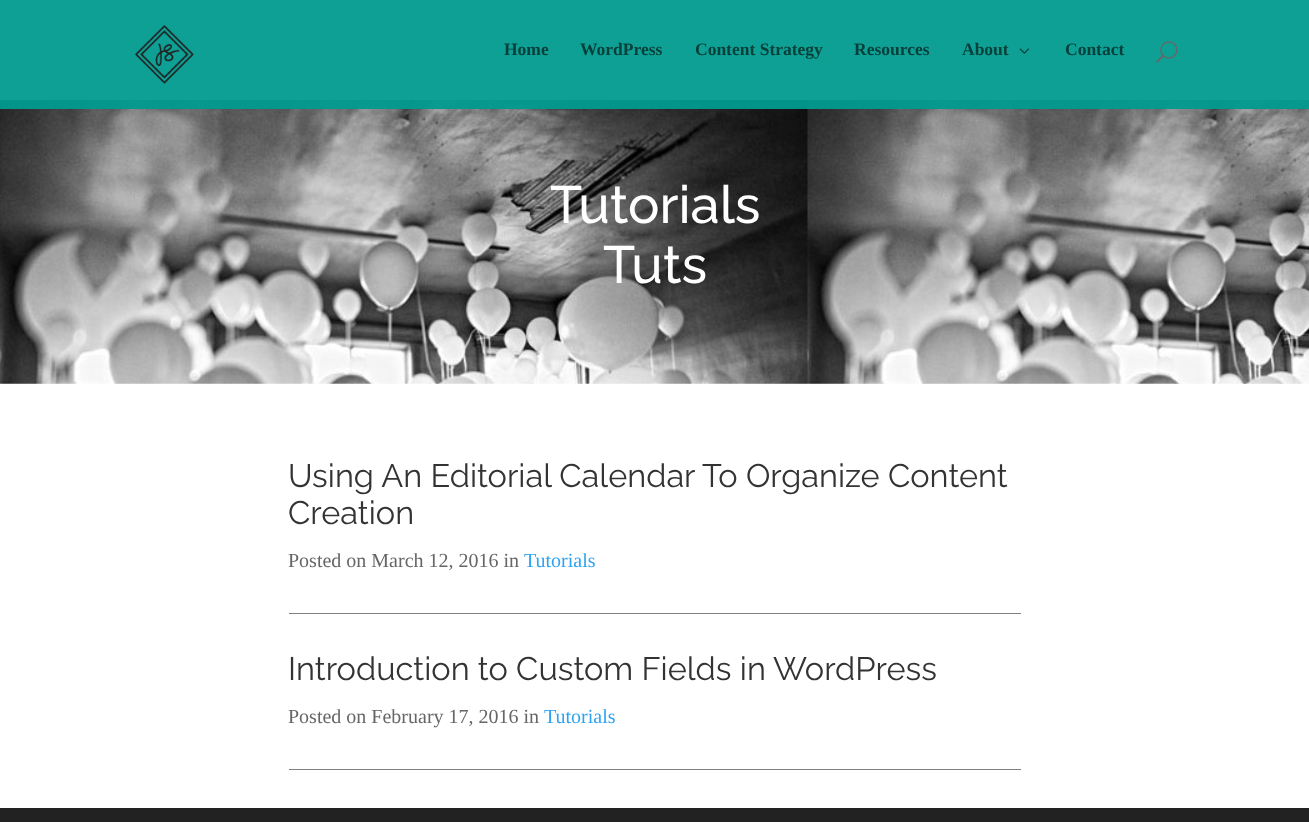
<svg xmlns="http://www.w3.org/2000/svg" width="1309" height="822">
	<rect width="100%" height="100%" fill="#FFFFFF" />
	<image x="0" y="100" width="1309" height="284" href="assets/img4.png" />
	<rect x="0" y="0" width="1309" height="109" fill="#029B8F" fill-opacity="0.95" />
	<image x="135" y="25" width="59" height="59" href="assets/img1.png" />
	<g font-family="Liberation Serif" font-size="17.5" font-weight="700" fill="#06403B">
		<text x="504" y="55">Home</text>
		<text x="580" y="55">WordPress</text>
		<text x="695" y="55">Content Strategy</text>
		<text x="854" y="55">Resources</text>
		<text x="962" y="55">About</text>
	</g>
	<image x="1019" y="48" width="10" height="6" href="assets/img2.png" />
	<text x="1065" y="55" font-family="Liberation Serif" font-size="17.5" font-weight="700" fill="#06403B">Contact</text>
	<image x="1156" y="41" width="22" height="22" href="assets/img3.png" />
	<g font-family="Raleway" font-size="52.5" font-weight="500" fill="#FFFFFF">
		<text x="550" y="223">Tutorials</text>
		<text x="603" y="283">Tuts</text>
	</g>
	<rect x="289" y="613" width="732" height="1" fill="#808080" />
	<g font-family="Raleway" font-size="32.5" fill="#333333">
		<text x="288" y="487">Using An Editorial Calendar To Organize Content</text>
		<text x="288" y="524">Creation</text>
	</g>
	<text x="288" y="567" font-family="Liberation Serif" font-size="20" fill="#666666">Posted on March 12, 2016 in</text>
	<text x="524" y="567" font-family="Liberation Serif" font-size="20" fill="#2EA3F2">Tutorials</text>
	<rect x="289" y="769" width="732" height="1" fill="#808080" />
	<text x="288" y="680" font-family="Raleway" font-size="32.5" fill="#333333">Introduction to Custom Fields in WordPress</text>
	<text x="288" y="723" font-family="Liberation Serif" font-size="20" fill="#666666">Posted on February 17, 2016 in</text>
	<text x="544" y="723" font-family="Liberation Serif" font-size="20" fill="#2EA3F2">Tutorials</text>
	<rect x="0" y="808" width="1309" height="14" fill="#222222" />
</svg>
